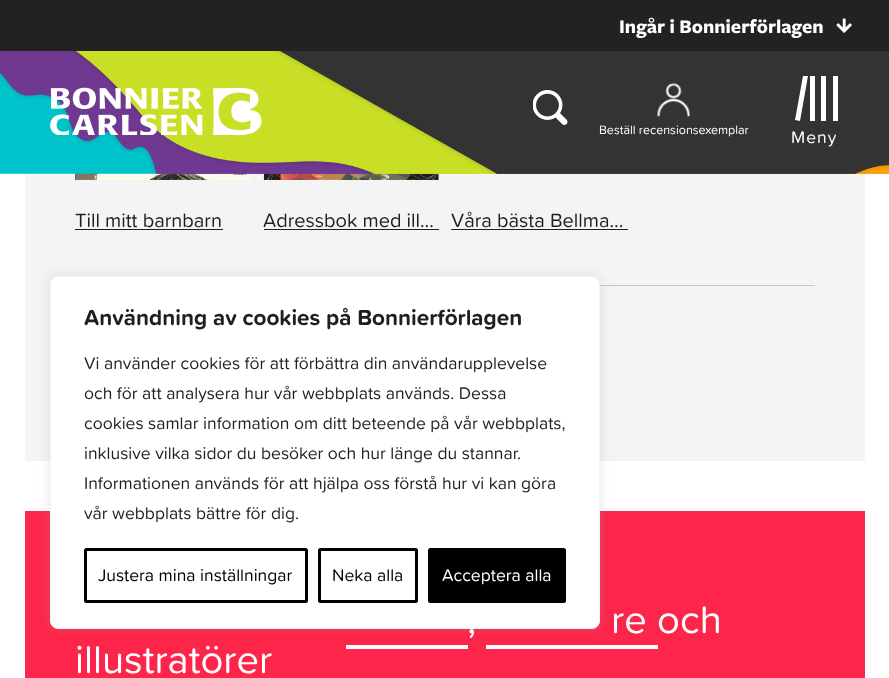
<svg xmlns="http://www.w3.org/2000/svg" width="889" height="678">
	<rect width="100%" height="100%" fill="#FFFFFF" />
	<rect x="0" y="0" width="889" height="51" fill="#222222" />
	<text x="619" y="33" font-family="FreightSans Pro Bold" font-size="20" font-weight="700" fill="#FFFFFF">Ingår i Bonnierförlagen</text>
	<image x="836" y="18" width="16" height="15" href="assets/img1.png" />
	<rect x="25" y="173" width="840" height="288" fill="#F4F4F4" />
	<image x="75" y="173" width="176" height="7" href="assets/img7.png" />
	<image x="263" y="173" width="176" height="7" href="assets/img8.png" />
	<image x="0" y="51" width="889" height="123" href="assets/img2.png" />
	<image x="50" y="87" width="212" height="48" href="assets/img3.png" />
	<image x="533" y="90" width="35" height="35" href="assets/img4.png" />
	<image x="657" y="83" width="33" height="34" href="assets/img5.png" />
	<text x="599" y="134" font-family="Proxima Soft" font-size="12.5" fill="#FFFFFF">Beställ recensionsexemplar</text>
	<path d="M803 76H808L800 121L795 120Z" fill="#FFFFFF" />
	<rect x="810" y="76" width="5" height="45" fill="#FFFFFF" />
	<rect x="821" y="76" width="5" height="45" fill="#FFFFFF" />
	<rect x="833" y="76" width="5" height="45" fill="#FFFFFF" />
	<text x="791" y="143" font-family="Proxima Soft" font-size="17.5" letter-spacing="1" fill="#FFFFFF">Meny</text>
	<image x="156" y="173" width="733" height="1" href="assets/img6.png" />
	<rect x="600" y="285" width="215" height="1" fill="#C7C7C7" />
	<text x="75" y="227" font-family="Proxima Soft" font-size="20" fill="#1C2024">Till mitt barnbarn</text>
	<rect x="75" y="229" width="148" height="1" fill="#1C2024" />
	<text x="263" y="227" font-family="Proxima Soft" font-size="20" fill="#1C2024">Adressbok med ill…</text>
	<rect x="264" y="229" width="175" height="1" fill="#1C2024" />
	<text x="451" y="227" font-family="Proxima Soft" font-size="20" fill="#1C2024">Våra bästa Bellma…</text>
	<rect x="451" y="229" width="177" height="1" fill="#1C2024" />
	<rect x="25" y="511" width="840" height="167" fill="#FD2549" />
	<g font-family="Proxima Soft" font-size="40" fill="#FFFFFF">
		<text x="467" y="633">,</text>
		<text x="611" y="633">re</text>
	</g>
	<rect x="486" y="645" width="172" height="4" fill="#FFFFFF" />
	<g font-family="Proxima Soft" font-size="40" fill="#FFFFFF">
		<text x="657" y="633">och</text>
		<text x="75" y="673">illustratörer</text>
	</g>
	<rect x="346" y="645" width="122" height="4" fill="#FFFFFF" />
	<rect x="50" y="275" width="550" height="353" rx="8" fill="#ACABAB" fill-opacity="0.3" filter="blur(6px)" />
	<rect x="50.5" y="276.5" width="549" height="352" rx="7.5" fill="#FFFFFF" stroke="#F4F4F4" />
	<text x="84" y="325" font-family="Proxima Soft" font-size="22.5" font-weight="700" fill="#1C2024">Användning av cookies på Bonnierförlagen</text>
	<g font-family="Proxima Soft" font-size="17.5" fill="#1C2024">
		<text x="84" y="369">Vi använder cookies för att förbättra din användarupplevelse</text>
		<text x="84" y="399">och för att analysera hur vår webbplats används. Dessa</text>
		<text x="84" y="429">cookies samlar information om ditt beteende på vår webbplats,</text>
		<text x="84" y="459">inklusive vilka sidor du besöker och hur länge du stannar.</text>
		<text x="84" y="489">Informationen används för att hjälpa oss förstå hur vi kan göra</text>
		<text x="84" y="519">vår webbplats bättre för dig.</text>
	</g>
	<rect x="85.5" y="549.5" width="221" height="52" rx="1" fill="none" stroke="#000000" stroke-width="3" />
	<text x="98" y="581" font-family="Proxima Soft" font-size="17.5" fill="#000000">Justera mina inställningar</text>
	<rect x="319.5" y="549.5" width="97" height="52" rx="1" fill="none" stroke="#000000" stroke-width="3" />
	<text x="332" y="581" font-family="Proxima Soft" font-size="17.5" fill="#000000">Neka alla</text>
	<rect x="429.5" y="549.5" width="135" height="52" rx="1" fill="#000000" stroke="#000000" stroke-width="3" />
	<text x="442" y="581" font-family="Proxima Soft" font-size="17.5" fill="#FFFFFF">Acceptera alla</text>
</svg>
